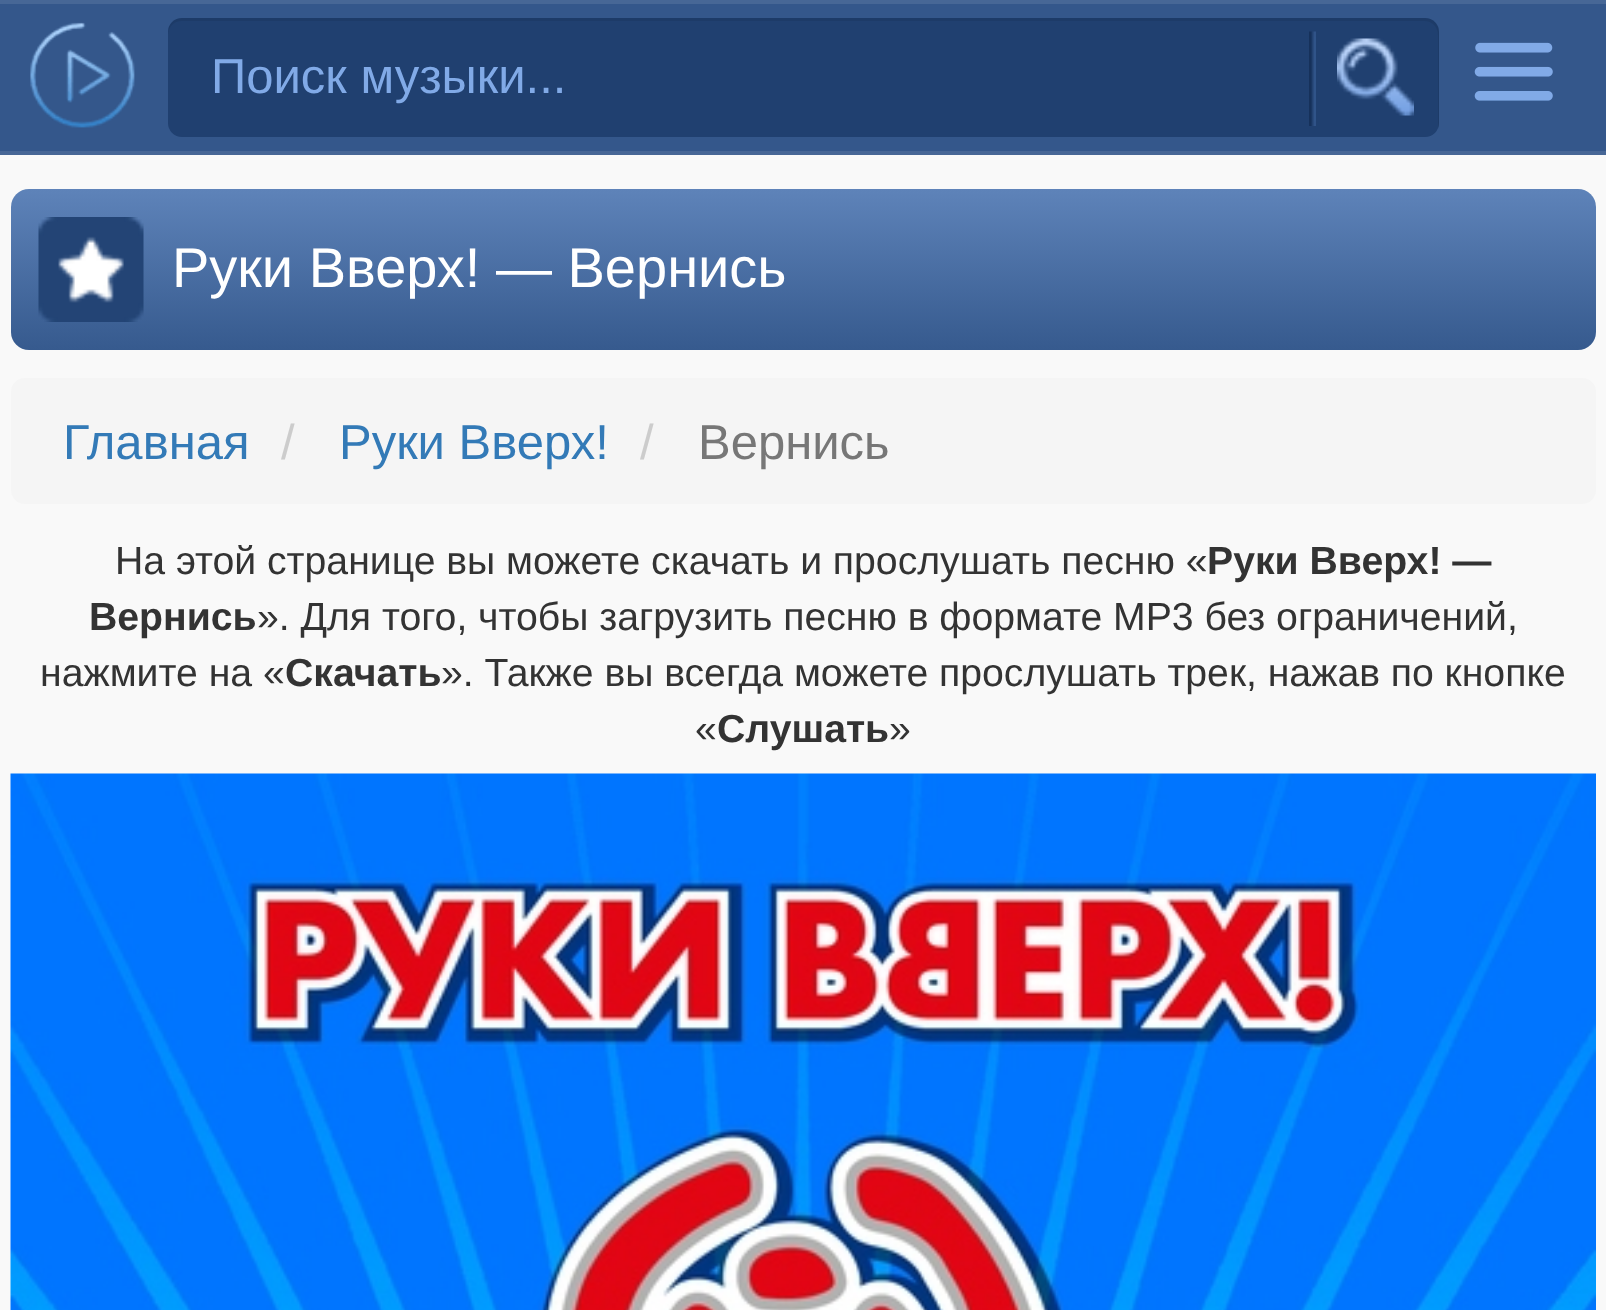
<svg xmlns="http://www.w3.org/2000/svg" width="1606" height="1310">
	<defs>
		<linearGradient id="g1" gradientUnits="userSpaceOnUse" x1="803" y1="189" x2="803" y2="350"><stop offset="0" stop-color="#5E83B9" /><stop offset="1" stop-color="#365A8E" /></linearGradient>
	</defs>
	<rect width="100%" height="100%" fill="#F9F9F9" />
	<rect x="0" y="4" width="1606" height="147" fill="#34578B" />
	<rect x="0" y="0" width="1606" height="4" fill="#476796" />
	<rect x="0" y="151" width="1606" height="4" fill="#476796" />
	<image x="30" y="22" width="105" height="106" href="assets/img1.png" />
	<rect x="168" y="18" width="1271" height="119" rx="14" fill="#204070" />
	<path d="M182 21H1424C1432 21 1438 27 1438 35V129C1439 127 1439 125 1439 123V32C1439 24 1433 18 1425 18H182C174 18 168 24 168 32V35C168 27 174 21 182 21Z" fill="#000000" fill-opacity="0.07" />
	<text x="211" y="93" font-family="Liberation Sans" font-size="49" fill="#81AAE7">Поиск музыки...</text>
	<image x="1309" y="31" width="7" height="95" href="assets/img2.png" />
	<image x="1337" y="38" width="77" height="78" href="assets/img3.png" />
	<image x="1474" y="42" width="79" height="59" href="assets/img4.png" />
	<rect x="11" y="189" width="1585" height="161" rx="18" fill="url(#g1)" />
	<image x="38" y="217" width="106" height="105" href="assets/img5.png" />
	<text x="172" y="287" font-family="Liberation Sans" font-size="56" fill="#FFFFFF">Руки Вверх! — Вернись</text>
	<rect x="11" y="378" width="1585" height="126" rx="14" fill="#F5F5F5" />
	<text x="63" y="459" font-family="Liberation Sans" font-size="49" fill="#337AB7">Главная</text>
	<text x="281" y="459" font-family="Liberation Sans" font-size="49" fill="#CCCCCC">/</text>
	<text x="339" y="459" font-family="Liberation Sans" font-size="49" fill="#337AB7">Руки Вверх!</text>
	<text x="640" y="459" font-family="Liberation Sans" font-size="49" fill="#CCCCCC">/</text>
	<text x="698" y="459" font-family="Liberation Sans" font-size="49" fill="#777777">Вернись</text>
	<text x="115" y="574" word-spacing="-0.1" font-family="Liberation Sans" font-size="39.2" fill="#333333">На этой странице вы можете скачать и прослушать песню «</text>
	<g font-family="Liberation Sans" font-size="39.2" font-weight="700" fill="#333333">
		<text x="1207" y="574">Руки Вверх! —</text>
		<text x="89" y="630">Вернись</text>
	</g>
	<g font-family="Liberation Sans" font-size="39.2" fill="#333333">
		<text x="257" y="630" word-spacing="-0.1">». Для того, чтобы загрузить песню в формате MP3 без ограничений,</text>
		<text x="40" y="686">нажмите на «</text>
	</g>
	<text x="285" y="686" font-family="Liberation Sans" font-size="39.2" font-weight="700" fill="#333333">Скачать</text>
	<g font-family="Liberation Sans" font-size="39.2" fill="#333333">
		<text x="441" y="686" word-spacing="-0.1">». Также вы всегда можете прослушать трек, нажав по кнопке</text>
		<text x="695" y="742">«</text>
	</g>
	<text x="717" y="742" font-family="Liberation Sans" font-size="39.2" font-weight="700" fill="#333333">Слушать</text>
	<text x="889" y="742" font-family="Liberation Sans" font-size="39.2" fill="#333333">»</text>
	<image x="10" y="773" width="1586" height="537" href="assets/img6.png" />
</svg>
